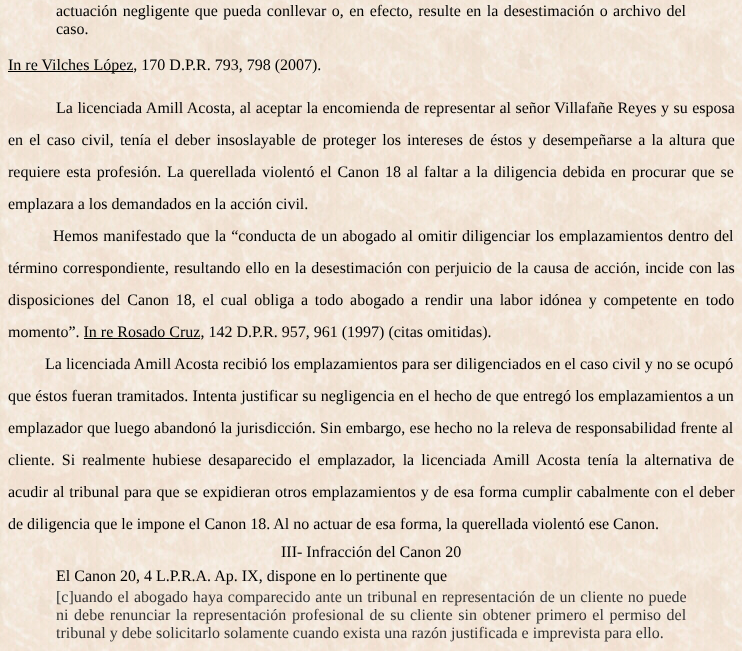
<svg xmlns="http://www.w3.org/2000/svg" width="742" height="651">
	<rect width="100%" height="100%" fill="#FFFFFF" />
	<image x="0" y="0" width="742" height="651" href="assets/img1.png" />
	<g font-family="Liberation Serif" font-size="16" fill="#000000">
		<text x="56" y="16" word-spacing="1.4">actuación negligente que pueda conllevar o, en efecto, resulte en la desestimación o archivo del</text>
		<text x="56" y="34">caso.</text>
	</g>
	<rect x="8" y="71" width="125" height="1" fill="#000000" />
	<g font-family="Liberation Serif" font-size="16" fill="#000000">
		<text x="8" y="70">In re Vilches López, 170 D.P.R. 793, 798 (2007).</text>
		<text x="56" y="113" word-spacing="0.5">La licenciada Amill Acosta, al aceptar la encomienda de representar al señor Villafañe Reyes y su esposa</text>
		<text x="8" y="145" word-spacing="2.1">en el caso civil, tenía el deber insoslayable de proteger los intereses de éstos y desempeñarse a la altura que</text>
		<text x="8" y="177" word-spacing="1.75">requiere esta profesión. La querellada violentó el Canon 18 al faltar a la diligencia debida en procurar que se</text>
		<text x="8" y="209">emplazara a los demandados en la acción civil.</text>
		<text x="53" y="241" word-spacing="1">Hemos manifestado que la “conducta de un abogado al omitir diligenciar los emplazamientos dentro del</text>
		<text x="8" y="273" word-spacing="1">término correspondiente, resultando ello en la desestimación con perjuicio de la causa de acción, incide con las</text>
		<text x="8" y="305" word-spacing="2.75">disposiciones del Canon 18, el cual obliga a todo abogado a rendir una labor idónea y competente en todo</text>
		<text x="8" y="337">momento”. In re Rosado Cruz, 142 D.P.R. 957, 961 (1997) (citas omitidas).</text>
	</g>
	<rect x="84" y="338" width="116" height="1" fill="#000000" />
	<g font-family="Liberation Serif" font-size="16" fill="#000000">
		<text x="45" y="369">La licenciada Amill Acosta recibió los emplazamientos para ser diligenciados en el caso civil y no se ocupó</text>
		<text x="8" y="401" word-spacing="0.25">que éstos fueran tramitados. Intenta justificar su negligencia en el hecho de que entregó los emplazamientos a un</text>
		<text x="8" y="433" word-spacing="0.25">emplazador que luego abandonó la jurisdicción. Sin embargo, ese hecho no la releva de responsabilidad frente al</text>
		<text x="8" y="465" word-spacing="3.1">cliente. Si realmente hubiese desaparecido el emplazador, la licenciada Amill Acosta tenía la alternativa de</text>
		<text x="8" y="497" word-spacing="0.9">acudir al tribunal para que se expidieran otros emplazamientos y de esa forma cumplir cabalmente con el deber</text>
		<text x="8" y="529">de diligencia que le impone el Canon 18. Al no actuar de esa forma, la querellada violentó ese Canon.</text>
		<text x="281" y="557">III- Infracción del Canon 20</text>
		<text x="56" y="581">El Canon 20, 4 L.P.R.A. Ap. IX, dispone en lo pertinente que</text>
	</g>
	<g font-family="Liberation Serif" font-size="16" fill="#333333">
		<text x="56" y="602" word-spacing="0.75">[c]uando el abogado haya comparecido ante un tribunal en representación de un cliente no puede</text>
		<text x="56" y="620" word-spacing="1.6">ni debe renunciar la representación profesional de su cliente sin obtener primero el permiso del</text>
		<text x="56" y="638">tribunal y debe solicitarlo solamente cuando exista una razón justificada e imprevista para ello.</text>
	</g>
</svg>
